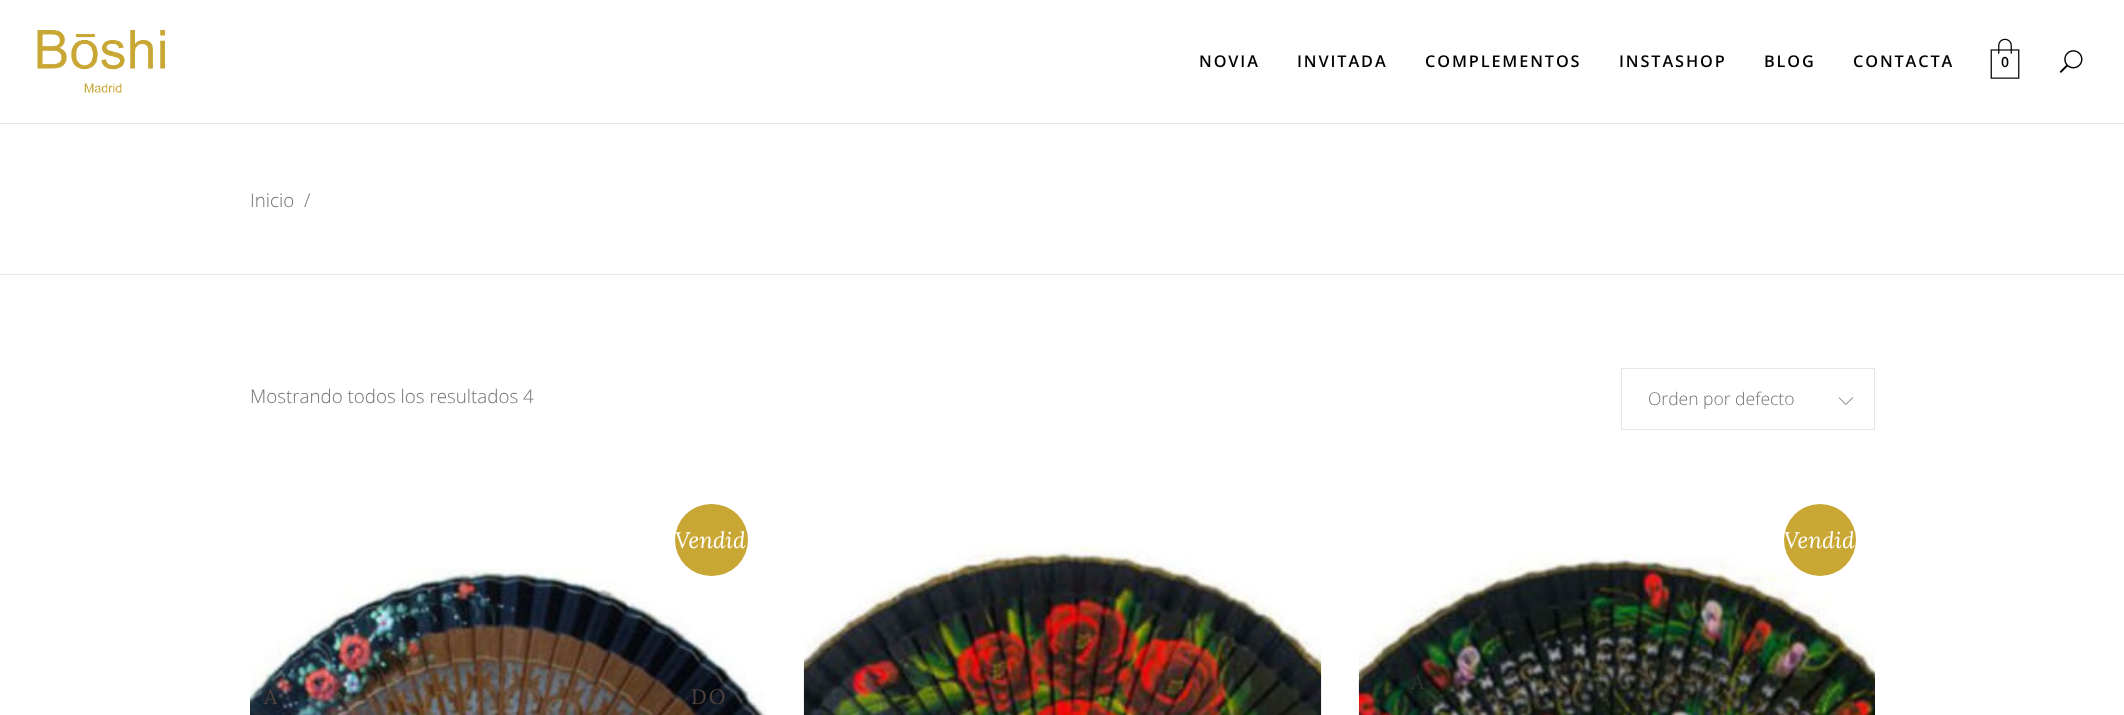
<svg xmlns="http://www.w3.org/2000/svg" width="2124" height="715">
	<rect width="100%" height="100%" fill="#FFFFFF" />
	<image x="37" y="30" width="128" height="63" href="assets/img1.png" />
	<g font-family="Open Sans" font-size="16.25" font-weight="600" letter-spacing="1.9" fill="#000000">
		<text x="1199" y="67">NOVIA</text>
		<text x="1297" y="67">INVITADA</text>
		<text x="1425" y="67">COMPLEMENTOS</text>
		<text x="1619" y="67">INSTASHOP</text>
		<text x="1764" y="67">BLOG</text>
		<text x="1853" y="67">CONTACTA</text>
	</g>
	<image x="1990" y="38" width="30" height="41" href="assets/img2.png" />
	<text x="2001" y="67" font-family="Open Sans" font-size="14" font-weight="600" fill="#000000">0</text>
	<image x="2059" y="50" width="24" height="23" href="assets/img3.png" />
	<rect x="0" y="123" width="2124" height="1" fill="#E6E6E6" />
	<rect x="0" y="274" width="2124" height="1" fill="#E6E6E6" />
	<g font-family="Open Sans" font-size="18.75" font-weight="300" fill="#717171">
		<text x="250" y="207">Inicio</text>
		<text x="304" y="207">/</text>
		<text x="250" y="403">Mostrando todos los resultados 4</text>
	</g>
	<rect x="1621.5" y="368.5" width="253" height="61" fill="none" stroke="#E6E6E6" />
	<text x="1648" y="405" font-family="Open Sans" font-size="17.5" font-weight="300" fill="#717171">Orden por defecto</text>
	<image x="1838" y="397" width="15" height="8" href="assets/img4.png" />
	<image x="250" y="568" width="516" height="147" href="assets/img5.png" />
	<rect x="675" y="504" width="73" height="72" rx="36" fill="#C8A734" />
	<text x="675" y="548" font-family="Lora" font-size="22.5" font-style="italic" fill="#FFFFFF">Vendid</text>
	<g font-family="Lora" font-size="21" letter-spacing="2" fill="#51433E">
		<text x="264" y="704">A</text>
		<text x="691" y="704">DO</text>
	</g>
	<image x="803" y="545" width="519" height="170" href="assets/img6.png" />
	<image x="1358" y="553" width="517" height="162" href="assets/img7.png" />
	<circle cx="1820" cy="540" r="36" fill="#C8A734" />
	<text x="1784" y="548" font-family="Lora" font-size="22.5" font-style="italic" fill="#FFFFFF">Vendid</text>
	<text x="1411" y="689" font-family="Lora" font-size="21" letter-spacing="2" fill="#32342B">A</text>
</svg>
